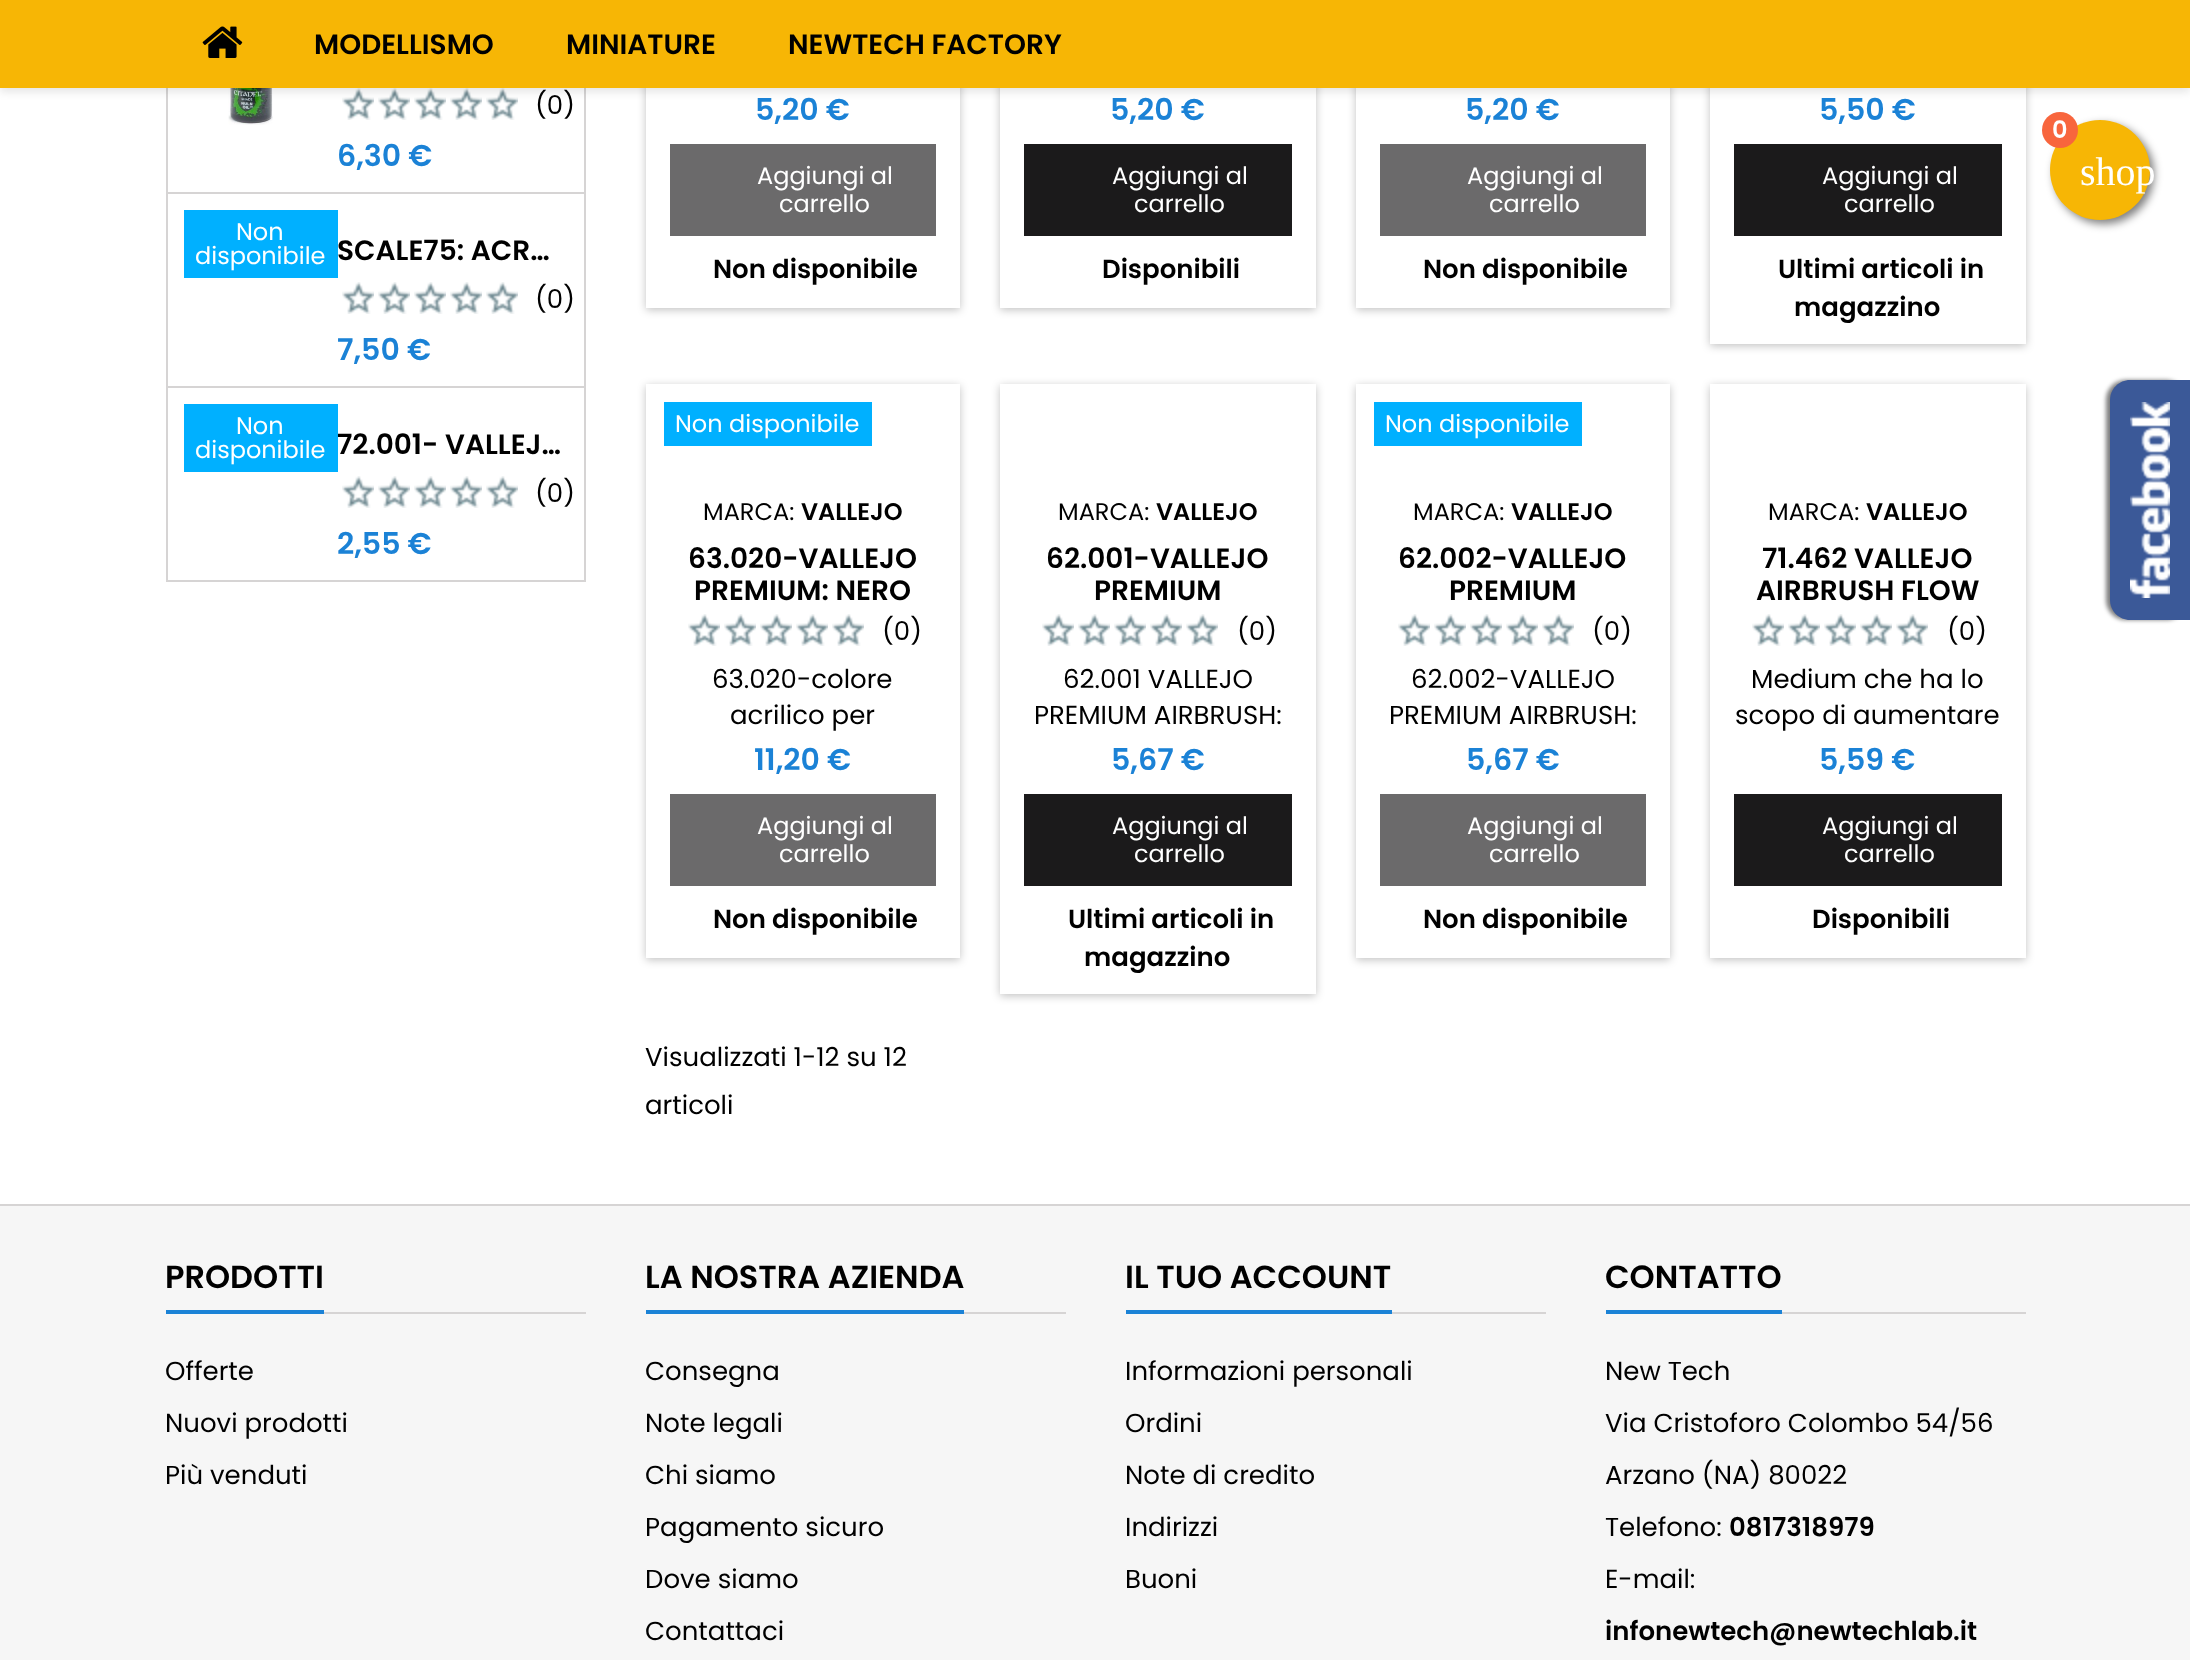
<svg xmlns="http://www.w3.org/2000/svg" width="2190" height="1660">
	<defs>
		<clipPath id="clip1"><path d="M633 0H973V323H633ZM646-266H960V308H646Z" clip-rule="evenodd" /></clipPath>
		<clipPath id="clip2"><path d="M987 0H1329V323H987ZM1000-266H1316V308H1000Z" clip-rule="evenodd" /></clipPath>
		<clipPath id="clip3"><path d="M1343 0H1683V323H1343ZM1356-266H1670V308H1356Z" clip-rule="evenodd" /></clipPath>
		<clipPath id="clip4"><path d="M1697 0H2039V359H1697ZM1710-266H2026V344H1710Z" clip-rule="evenodd" /></clipPath>
		<clipPath id="clip5"><path d="M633 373H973V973H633ZM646 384H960V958H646Z" clip-rule="evenodd" /></clipPath>
		<clipPath id="clip6"><path d="M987 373H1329V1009H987ZM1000 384H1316V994H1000Z" clip-rule="evenodd" /></clipPath>
		<clipPath id="clip7"><path d="M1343 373H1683V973H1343ZM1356 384H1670V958H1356Z" clip-rule="evenodd" /></clipPath>
		<clipPath id="clip8"><path d="M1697 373H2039V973H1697ZM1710 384H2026V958H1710Z" clip-rule="evenodd" /></clipPath>
	</defs>
	<rect width="100%" height="100%" fill="#FFFFFF" />
	<rect x="584" y="88" width="2" height="494" fill="#D6D4D4" />
	<rect x="166" y="192" width="420" height="2" fill="#D6D4D4" />
	<rect x="166" y="88" width="2" height="106" fill="#D6D4D4" />
	<image x="228" y="88" width="45" height="37" href="assets/img2.png" />
	<image x="342" y="88" width="32" height="32" href="assets/img3.png" />
	<image x="378" y="88" width="32" height="32" href="assets/img3.png" />
	<image x="414" y="88" width="32" height="32" href="assets/img3.png" />
	<image x="450" y="88" width="32" height="32" href="assets/img3.png" />
	<image x="486" y="88" width="32" height="32" href="assets/img3.png" />
	<rect x="0" y="4" width="2190" height="88" fill="#000000" fill-opacity="0.1" filter="blur(4px)" />
	<g clip-path="url(#clip1)">
		<rect x="646" y="-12" width="314" height="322" fill="#000000" fill-opacity="0.24" filter="blur(4px)" />
	</g>
	<g clip-path="url(#clip2)">
		<rect x="1000" y="-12" width="316" height="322" fill="#000000" fill-opacity="0.24" filter="blur(4px)" />
	</g>
	<g clip-path="url(#clip3)">
		<rect x="1356" y="-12" width="314" height="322" fill="#000000" fill-opacity="0.24" filter="blur(4px)" />
	</g>
	<g clip-path="url(#clip4)">
		<rect x="1710" y="-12" width="316" height="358" fill="#000000" fill-opacity="0.24" filter="blur(4px)" />
	</g>
	<rect x="0" y="0" width="2190" height="88" fill="#F7B605" />
	<image x="202" y="26" width="41" height="32" href="assets/img1.png" />
	<g font-family="Poppins" font-size="28" font-weight="600" fill="#000000">
		<text x="314" y="54">MODELLISMO</text>
		<text x="566" y="54">MINIATURE</text>
		<text x="788" y="54">NEWTECH FACTORY</text>
	</g>
	<rect x="2054" y="124" width="100" height="100" rx="50" fill="#000000" fill-opacity="0.5" filter="blur(4px)" />
	<circle cx="2100" cy="170" r="50" fill="#F7B605" />
	<circle cx="2060" cy="130" r="18" fill="#F8653D" />
	<text x="2052" y="138" font-family="Poppins" font-size="24" font-weight="600" fill="#FFFFFF">0</text>
	<text x="2080" y="185" font-family="Liberation Serif" font-size="40" fill="#FFFFFF">shop</text>
	<text x="535" y="114" font-family="Poppins" font-size="26" fill="#000000">(0)</text>
	<text x="337" y="166" font-family="Poppins" font-size="30" font-weight="600" fill="#1B82D6">6,30 €</text>
	<rect x="166" y="386" width="420" height="2" fill="#D6D4D4" />
	<rect x="166" y="194" width="2" height="194" fill="#D6D4D4" />
	<rect x="184" y="210" width="154" height="68" fill="#00B0FF" />
	<g font-family="Poppins" font-size="24" fill="#FFFFFF">
		<text x="236" y="240">Non</text>
		<text x="195" y="264">disponibile</text>
	</g>
	<text x="337" y="260" font-family="Poppins" font-size="28" font-weight="600" fill="#000000">SCALE75: ACR…</text>
	<image x="342" y="282" width="32" height="32" href="assets/img3.png" />
	<image x="378" y="282" width="32" height="32" href="assets/img3.png" />
	<image x="414" y="282" width="32" height="32" href="assets/img3.png" />
	<image x="450" y="282" width="32" height="32" href="assets/img3.png" />
	<image x="486" y="282" width="32" height="32" href="assets/img3.png" />
	<text x="535" y="308" font-family="Poppins" font-size="26" fill="#000000">(0)</text>
	<text x="337" y="360" font-family="Poppins" font-size="30" font-weight="600" fill="#1B82D6">7,50 €</text>
	<rect x="166" y="580" width="420" height="2" fill="#D6D4D4" />
	<rect x="166" y="388" width="2" height="194" fill="#D6D4D4" />
	<rect x="184" y="404" width="154" height="68" fill="#00B0FF" />
	<g font-family="Poppins" font-size="24" fill="#FFFFFF">
		<text x="236" y="434">Non</text>
		<text x="195" y="458">disponibile</text>
	</g>
	<text x="337" y="454" font-family="Poppins" font-size="28" font-weight="600" fill="#000000">72.001- VALLEJ…</text>
	<image x="342" y="476" width="32" height="32" href="assets/img3.png" />
	<image x="378" y="476" width="32" height="32" href="assets/img3.png" />
	<image x="414" y="476" width="32" height="32" href="assets/img3.png" />
	<image x="450" y="476" width="32" height="32" href="assets/img3.png" />
	<image x="486" y="476" width="32" height="32" href="assets/img3.png" />
	<text x="535" y="502" font-family="Poppins" font-size="26" fill="#000000">(0)</text>
	<g font-family="Poppins" font-size="30" font-weight="600" fill="#1B82D6">
		<text x="337" y="554">2,55 €</text>
		<text x="755" y="120">5,20 €</text>
	</g>
	<rect x="670" y="144" width="266" height="92" fill="#6B6A6B" />
	<g font-family="Poppins" font-size="24" fill="#FFFFFF">
		<text x="757" y="184">Aggiungi al</text>
		<text x="779" y="212">carrello</text>
	</g>
	<text x="713" y="278" font-family="Poppins" font-size="26" font-weight="600" fill="#000000">Non disponibile</text>
	<text x="1110" y="120" font-family="Poppins" font-size="30" font-weight="600" fill="#1B82D6">5,20 €</text>
	<rect x="1024" y="144" width="268" height="92" fill="#1B1A1B" />
	<g font-family="Poppins" font-size="24" fill="#FFFFFF">
		<text x="1112" y="184">Aggiungi al</text>
		<text x="1134" y="212">carrello</text>
	</g>
	<text x="1102" y="278" font-family="Poppins" font-size="26" font-weight="600" fill="#000000">Disponibili</text>
	<text x="1465" y="120" font-family="Poppins" font-size="30" font-weight="600" fill="#1B82D6">5,20 €</text>
	<rect x="1380" y="144" width="266" height="92" fill="#6B6A6B" />
	<g font-family="Poppins" font-size="24" fill="#FFFFFF">
		<text x="1467" y="184">Aggiungi al</text>
		<text x="1489" y="212">carrello</text>
	</g>
	<text x="1423" y="278" font-family="Poppins" font-size="26" font-weight="600" fill="#000000">Non disponibile</text>
	<text x="1819" y="120" font-family="Poppins" font-size="30" font-weight="600" fill="#1B82D6">5,50 €</text>
	<rect x="1734" y="144" width="268" height="92" fill="#1B1A1B" />
	<g font-family="Poppins" font-size="24" fill="#FFFFFF">
		<text x="1822" y="184">Aggiungi al</text>
		<text x="1844" y="212">carrello</text>
	</g>
	<g font-family="Poppins" font-size="26" font-weight="600" fill="#000000">
		<text x="1778" y="278">Ultimi articoli in</text>
		<text x="1794" y="316">magazzino</text>
	</g>
	<g clip-path="url(#clip5)">
		<rect x="646" y="386" width="314" height="574" fill="#000000" fill-opacity="0.24" filter="blur(4px)" />
	</g>
	<rect x="664" y="402" width="208" height="44" fill="#00B0FF" />
	<text x="675" y="432" font-family="Poppins" font-size="24" fill="#FFFFFF">Non disponibile</text>
	<text x="703" y="520" font-family="Poppins" font-size="24" fill="#000000">MARCA:</text>
	<text x="801" y="520" font-family="Poppins" font-size="24" font-weight="600" fill="#000000">VALLEJO</text>
	<g font-family="Poppins" font-size="28" font-weight="600" fill="#000000">
		<text x="688" y="568">63.020-VALLEJO</text>
		<text x="694" y="600">PREMIUM: NERO</text>
	</g>
	<image x="688" y="614" width="32" height="32" href="assets/img3.png" />
	<image x="724" y="614" width="32" height="32" href="assets/img3.png" />
	<image x="760" y="614" width="32" height="32" href="assets/img3.png" />
	<image x="796" y="614" width="32" height="32" href="assets/img3.png" />
	<image x="832" y="614" width="32" height="32" href="assets/img3.png" />
	<g font-family="Poppins" font-size="26" fill="#000000">
		<text x="882" y="640">(0)</text>
		<text x="712" y="688">63.020-colore</text>
		<text x="730" y="724">acrilico per</text>
	</g>
	<text x="754" y="770" font-family="Poppins" font-size="30" font-weight="600" fill="#1B82D6">11,20 €</text>
	<rect x="670" y="794" width="266" height="92" fill="#6B6A6B" />
	<g font-family="Poppins" font-size="24" fill="#FFFFFF">
		<text x="757" y="834">Aggiungi al</text>
		<text x="779" y="862">carrello</text>
	</g>
	<text x="713" y="928" font-family="Poppins" font-size="26" font-weight="600" fill="#000000">Non disponibile</text>
	<g clip-path="url(#clip6)">
		<rect x="1000" y="386" width="316" height="610" fill="#000000" fill-opacity="0.24" filter="blur(4px)" />
	</g>
	<text x="1058" y="520" font-family="Poppins" font-size="24" fill="#000000">MARCA:</text>
	<text x="1156" y="520" font-family="Poppins" font-size="24" font-weight="600" fill="#000000">VALLEJO</text>
	<g font-family="Poppins" font-size="28" font-weight="600" fill="#000000">
		<text x="1046" y="568">62.001-VALLEJO</text>
		<text x="1094" y="600">PREMIUM</text>
	</g>
	<image x="1042" y="614" width="32" height="32" href="assets/img3.png" />
	<image x="1078" y="614" width="32" height="32" href="assets/img3.png" />
	<image x="1114" y="614" width="32" height="32" href="assets/img3.png" />
	<image x="1150" y="614" width="32" height="32" href="assets/img3.png" />
	<image x="1186" y="614" width="32" height="32" href="assets/img3.png" />
	<g font-family="Poppins" font-size="26" fill="#000000">
		<text x="1237" y="640">(0)</text>
		<text x="1063" y="688">62.001 VALLEJO</text>
		<text x="1034" y="724">PREMIUM AIRBRUSH:</text>
	</g>
	<text x="1111" y="770" font-family="Poppins" font-size="30" font-weight="600" fill="#1B82D6">5,67 €</text>
	<rect x="1024" y="794" width="268" height="92" fill="#1B1A1B" />
	<g font-family="Poppins" font-size="24" fill="#FFFFFF">
		<text x="1112" y="834">Aggiungi al</text>
		<text x="1134" y="862">carrello</text>
	</g>
	<g font-family="Poppins" font-size="26" font-weight="600" fill="#000000">
		<text x="1068" y="928">Ultimi articoli in</text>
		<text x="1084" y="966">magazzino</text>
	</g>
	<g clip-path="url(#clip7)">
		<rect x="1356" y="386" width="314" height="574" fill="#000000" fill-opacity="0.24" filter="blur(4px)" />
	</g>
	<rect x="1374" y="402" width="208" height="44" fill="#00B0FF" />
	<text x="1385" y="432" font-family="Poppins" font-size="24" fill="#FFFFFF">Non disponibile</text>
	<text x="1413" y="520" font-family="Poppins" font-size="24" fill="#000000">MARCA:</text>
	<text x="1511" y="520" font-family="Poppins" font-size="24" font-weight="600" fill="#000000">VALLEJO</text>
	<g font-family="Poppins" font-size="28" font-weight="600" fill="#000000">
		<text x="1398" y="568">62.002-VALLEJO</text>
		<text x="1449" y="600">PREMIUM</text>
	</g>
	<image x="1398" y="614" width="32" height="32" href="assets/img3.png" />
	<image x="1434" y="614" width="32" height="32" href="assets/img3.png" />
	<image x="1470" y="614" width="32" height="32" href="assets/img3.png" />
	<image x="1506" y="614" width="32" height="32" href="assets/img3.png" />
	<image x="1542" y="614" width="32" height="32" href="assets/img3.png" />
	<g font-family="Poppins" font-size="26" fill="#000000">
		<text x="1592" y="640">(0)</text>
		<text x="1411" y="688">62.002-VALLEJO</text>
		<text x="1389" y="724">PREMIUM AIRBRUSH:</text>
	</g>
	<text x="1466" y="770" font-family="Poppins" font-size="30" font-weight="600" fill="#1B82D6">5,67 €</text>
	<rect x="1380" y="794" width="266" height="92" fill="#6B6A6B" />
	<g font-family="Poppins" font-size="24" fill="#FFFFFF">
		<text x="1467" y="834">Aggiungi al</text>
		<text x="1489" y="862">carrello</text>
	</g>
	<text x="1423" y="928" font-family="Poppins" font-size="26" font-weight="600" fill="#000000">Non disponibile</text>
	<g clip-path="url(#clip8)">
		<rect x="1710" y="386" width="316" height="574" fill="#000000" fill-opacity="0.24" filter="blur(4px)" />
	</g>
	<text x="1768" y="520" font-family="Poppins" font-size="24" fill="#000000">MARCA:</text>
	<text x="1866" y="520" font-family="Poppins" font-size="24" font-weight="600" fill="#000000">VALLEJO</text>
	<g font-family="Poppins" font-size="28" font-weight="600" fill="#000000">
		<text x="1762" y="568">71.462 VALLEJO</text>
		<text x="1756" y="600">AIRBRUSH FLOW</text>
	</g>
	<image x="1752" y="614" width="32" height="32" href="assets/img3.png" />
	<image x="1788" y="614" width="32" height="32" href="assets/img3.png" />
	<image x="1824" y="614" width="32" height="32" href="assets/img3.png" />
	<image x="1860" y="614" width="32" height="32" href="assets/img3.png" />
	<image x="1896" y="614" width="32" height="32" href="assets/img3.png" />
	<g font-family="Poppins" font-size="26" fill="#000000">
		<text x="1947" y="640">(0)</text>
		<text x="1751" y="688">Medium che ha lo</text>
		<text x="1735" y="724">scopo di aumentare</text>
	</g>
	<text x="1819" y="770" font-family="Poppins" font-size="30" font-weight="600" fill="#1B82D6">5,59 €</text>
	<rect x="1734" y="794" width="268" height="92" fill="#1B1A1B" />
	<g font-family="Poppins" font-size="24" fill="#FFFFFF">
		<text x="1822" y="834">Aggiungi al</text>
		<text x="1844" y="862">carrello</text>
	</g>
	<text x="1812" y="928" font-family="Poppins" font-size="26" font-weight="600" fill="#000000">Disponibili</text>
	<g font-family="Poppins" font-size="26" fill="#000000">
		<text x="645" y="1066">Visualizzati 1-12 su 12</text>
		<text x="645" y="1114">articoli</text>
	</g>
	<rect x="2106" y="380" width="80" height="240" rx="20" fill="#000000" fill-opacity="0.5" filter="blur(2px)" />
	<path d="M2130 380H2190V620H2130C2119 620 2110 611 2110 600V400C2110 389 2119 380 2130 380Z" fill="#3B5998" />
	<image x="2130" y="402" width="40" height="196" href="assets/img4.png" />
	<rect x="0" y="1206" width="2190" height="454" fill="#F6F6F6" />
	<rect x="0" y="1204" width="2190" height="2" fill="#D6D4D4" />
	<rect x="324" y="1312" width="262" height="2" fill="#D6D4D4" />
	<rect x="166" y="1310" width="158" height="4" fill="#1B82D6" />
	<text x="165" y="1288" font-family="Poppins" font-size="32" font-weight="600" fill="#000000">PRODOTTI</text>
	<g font-family="Poppins" font-size="26" fill="#000000">
		<text x="165" y="1380">Offerte</text>
		<text x="165" y="1432">Nuovi prodotti</text>
		<text x="165" y="1484">Più venduti</text>
	</g>
	<rect x="964" y="1312" width="102" height="2" fill="#D6D4D4" />
	<rect x="646" y="1310" width="318" height="4" fill="#1B82D6" />
	<text x="645" y="1288" font-family="Poppins" font-size="32" font-weight="600" fill="#000000">LA NOSTRA AZIENDA</text>
	<g font-family="Poppins" font-size="26" fill="#000000">
		<text x="645" y="1380">Consegna</text>
		<text x="645" y="1432">Note legali</text>
		<text x="645" y="1484">Chi siamo</text>
		<text x="645" y="1536">Pagamento sicuro</text>
		<text x="645" y="1588">Dove siamo</text>
		<text x="645" y="1640">Contattaci</text>
	</g>
	<rect x="1392" y="1312" width="154" height="2" fill="#D6D4D4" />
	<rect x="1126" y="1310" width="266" height="4" fill="#1B82D6" />
	<text x="1125" y="1288" font-family="Poppins" font-size="32" font-weight="600" fill="#000000">IL TUO ACCOUNT</text>
	<g font-family="Poppins" font-size="26" fill="#000000">
		<text x="1125" y="1380">Informazioni personali</text>
		<text x="1125" y="1432">Ordini</text>
		<text x="1125" y="1484">Note di credito</text>
		<text x="1125" y="1536">Indirizzi</text>
		<text x="1125" y="1588">Buoni</text>
	</g>
	<rect x="1782" y="1312" width="244" height="2" fill="#D6D4D4" />
	<rect x="1606" y="1310" width="176" height="4" fill="#1B82D6" />
	<text x="1605" y="1288" font-family="Poppins" font-size="32" font-weight="600" fill="#000000">CONTATTO</text>
	<g font-family="Poppins" font-size="26" fill="#000000">
		<text x="1605" y="1380">New Tech</text>
		<text x="1605" y="1432">Via Cristoforo Colombo 54/56</text>
		<text x="1605" y="1484">Arzano (NA) 80022</text>
		<text x="1605" y="1536">Telefono:</text>
	</g>
	<text x="1729" y="1536" font-family="Poppins" font-size="26" font-weight="600" fill="#000000">0817318979</text>
	<text x="1605" y="1588" font-family="Poppins" font-size="26" fill="#000000">E-mail:</text>
	<text x="1605" y="1640" font-family="Poppins" font-size="26" font-weight="600" fill="#000000">infonewtech@newtechlab.it</text>
</svg>
